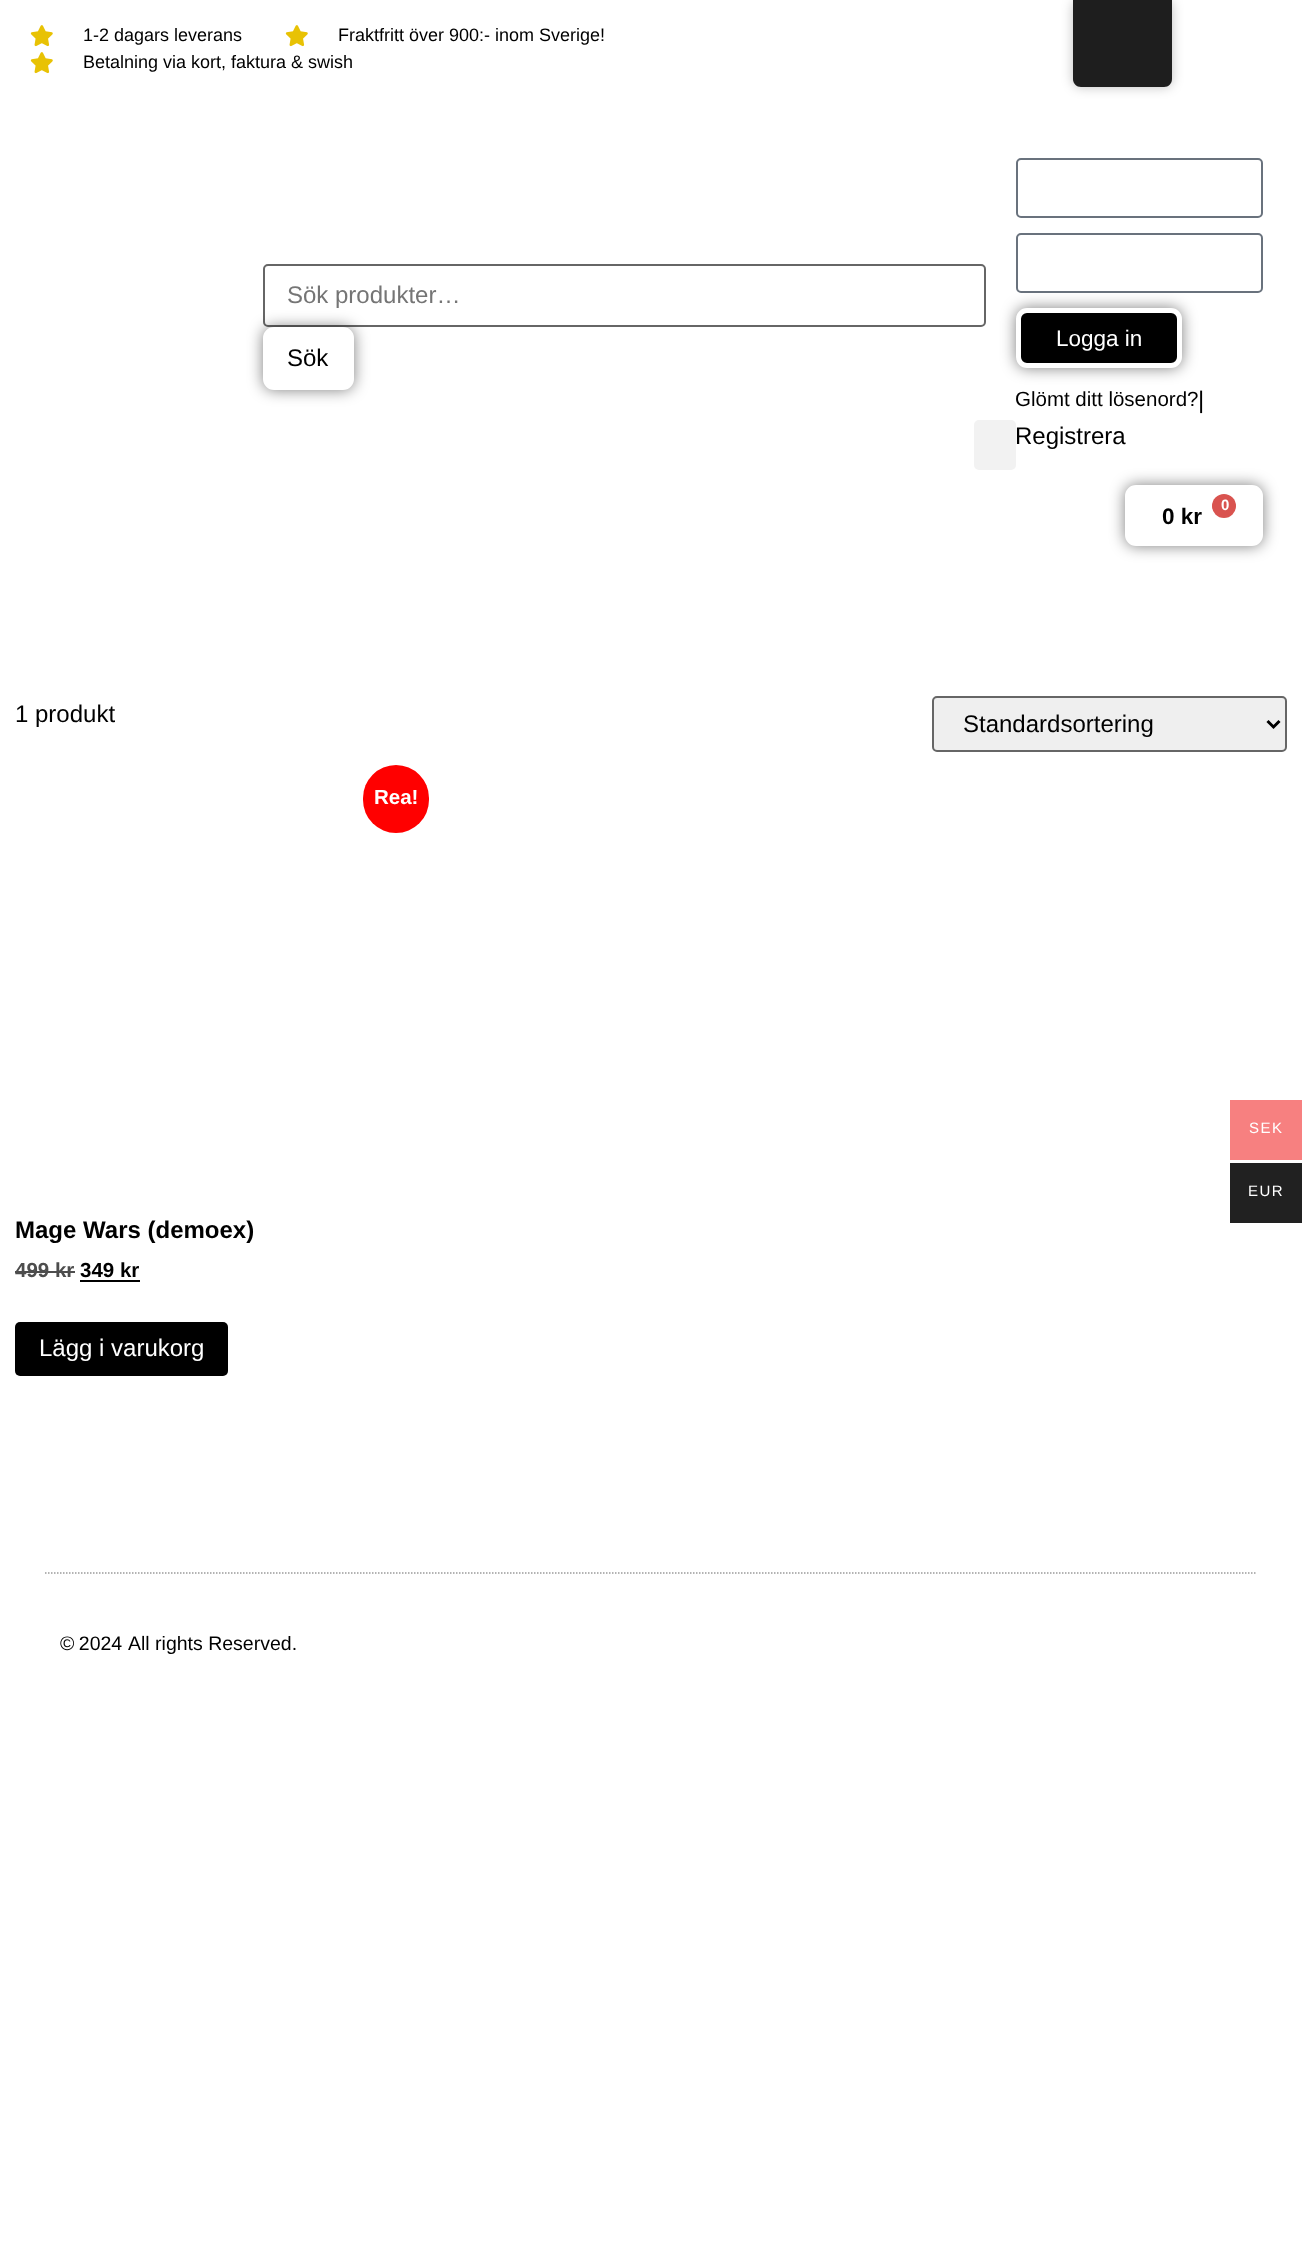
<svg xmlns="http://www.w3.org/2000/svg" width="1302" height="2242">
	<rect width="100%" height="100%" fill="#FFFFFF" />
	<rect x="1073" y="0" width="99" height="87" rx="8" fill="#000000" fill-opacity="0.25" filter="blur(6px)" />
	<path d="M1073 0H1172V79C1172 83.5 1168.5 87 1164 87H1081C1076.5 87 1073 83.5 1073 79Z" fill="#1E1E1E" />
	<image x="30" y="25" width="23" height="22" href="assets/img1.png" />
	<text x="83" y="41" font-family="Liberation Sans" font-size="18" fill="#000000">1-2 dagars leverans</text>
	<image x="285" y="25" width="23" height="22" href="assets/img1.png" />
	<text x="338" y="41" font-family="Liberation Sans" font-size="18" fill="#000000">Fraktfritt över 900:- inom Sverige!</text>
	<image x="30" y="52" width="23" height="22" href="assets/img1.png" />
	<text x="83" y="68" font-family="Liberation Sans" font-size="18" fill="#000000">Betalning via kort, faktura &amp; swish</text>
	<rect x="264" y="265" width="721" height="61" rx="4" fill="none" stroke="#666666" stroke-width="2" />
	<text x="287" y="303" font-family="Liberation Sans" font-size="24" fill="#757575">Sök produkter…</text>
	<rect x="263" y="327" width="91" height="63" rx="11" fill="#000000" fill-opacity="0.5" filter="blur(7.5px)" />
	<rect x="264" y="328" width="89" height="61" rx="10" fill="#FFFFFF" stroke="#FFFFFF" stroke-width="2" />
	<text x="287" y="366" font-family="Liberation Sans" font-size="24" fill="#000000">Sök</text>
	<rect x="974" y="420" width="42" height="50" rx="5" fill="#F2F2F2" />
	<rect x="1017" y="159" width="245" height="58" rx="4" fill="none" stroke="#69727D" stroke-width="2" />
	<rect x="1017" y="234" width="245" height="58" rx="4" fill="none" stroke="#69727D" stroke-width="2" />
	<rect x="1016" y="308" width="166" height="60" rx="11" fill="#000000" fill-opacity="0.5" filter="blur(7.5px)" />
	<rect x="1018.5" y="310.5" width="161" height="55" rx="8.5" fill="#000000" stroke="#FFFFFF" stroke-width="5" />
	<text x="1056" y="346" font-family="Liberation Sans" font-size="22.5" fill="#FFFFFF">Logga in</text>
	<text x="1015" y="406" font-family="Liberation Sans" font-size="20.5" fill="#000000">Glömt ditt lösenord?</text>
	<g font-family="Liberation Sans" font-size="24" fill="#000000">
		<text x="1198" y="408">|</text>
		<text x="1015" y="444">Registrera</text>
	</g>
	<rect x="1125" y="485" width="138" height="61" rx="11" fill="#000000" fill-opacity="0.5" filter="blur(7.5px)" />
	<rect x="1126" y="486" width="136" height="59" rx="10" fill="#FFFFFF" stroke="#FFFFFF" stroke-width="2" />
	<circle cx="1224" cy="506" r="12" fill="#D9534F" />
	<text x="1221" y="510" font-family="Liberation Sans" font-size="15" font-weight="700" fill="#FFFFFF">0</text>
	<text x="1162" y="524" font-family="Liberation Sans" font-size="22.5" font-weight="700" fill="#000000">0 kr</text>
	<text x="15" y="722" font-family="Liberation Sans" font-size="24" fill="#000000">1 produkt</text>
	<rect x="933" y="697" width="353" height="54" rx="4" fill="#EFEFEF" stroke="#666666" stroke-width="2" />
	<path d="M1267.5 721L1273.5 727L1279.5 721" fill="none" stroke="#000000" stroke-width="3" />
	<text x="963" y="732" font-family="Liberation Sans" font-size="24" fill="#000000">Standardsortering</text>
	<rect x="363" y="765" width="66" height="68" rx="33" fill="#FF0000" />
	<text x="374" y="804" font-family="Liberation Sans" font-size="20.5" font-weight="700" fill="#FFFFFF">Rea!</text>
	<text x="15" y="1238" font-family="Liberation Sans" font-size="24" font-weight="700" fill="#000000">Mage Wars (demoex)</text>
	<text x="15" y="1277" font-family="Liberation Sans" font-size="20.5" font-weight="700" fill="#4D4D4D">499 kr</text>
	<rect x="15" y="1271" width="60" height="2" fill="#4D4D4D" />
	<text x="80" y="1277" font-family="Liberation Sans" font-size="20.5" font-weight="700" fill="#000000">349 kr</text>
	<rect x="80" y="1280" width="60" height="2" fill="#000000" />
	<rect x="15" y="1322" width="213" height="54" rx="5" fill="#000000" />
	<text x="39" y="1356" font-family="Liberation Sans" font-size="24" fill="#FFFFFF">Lägg i varukorg</text>
	<rect x="1230" y="1100" width="72" height="60" fill="#F78080" />
	<text x="1249" y="1133" font-family="Liberation Sans" font-size="15" letter-spacing="1.5" fill="#FFFFFF">SEK</text>
	<rect x="1230" y="1163" width="72" height="60" fill="#212121" />
	<text x="1248" y="1196" font-family="Liberation Sans" font-size="15" letter-spacing="1.5" fill="#FFFFFF">EUR</text>
	<path d="M45 1573H1257" fill="none" stroke="#9B9B9B" stroke-width="1.5" stroke-dasharray="1.5 1.5" />
	<g font-family="Liberation Sans" font-size="19.5" fill="#000000">
		<text x="60" y="1650" word-spacing="-1">© 2024</text>
		<text x="128" y="1650">All rights Reserved.</text>
	</g>
</svg>
